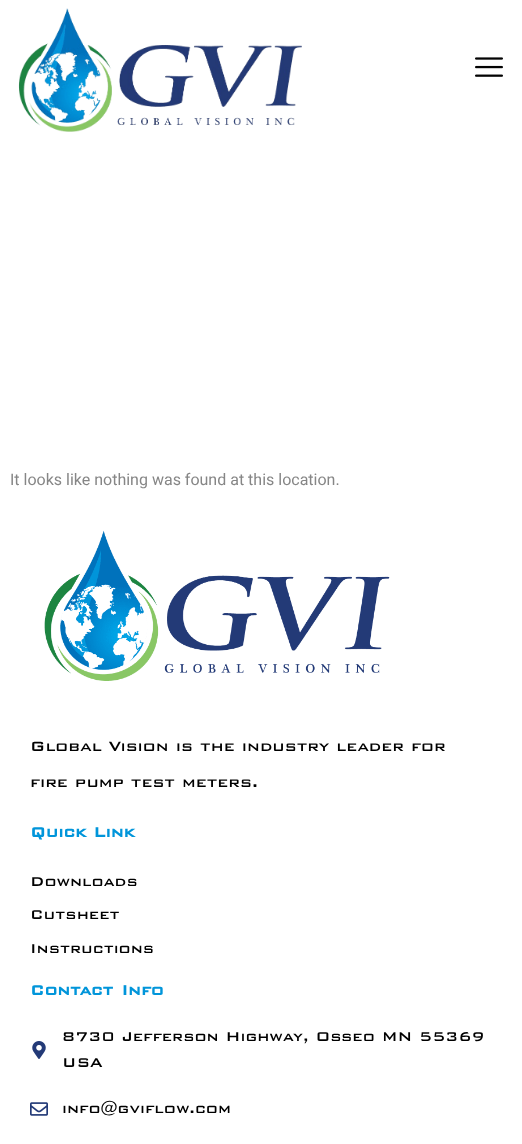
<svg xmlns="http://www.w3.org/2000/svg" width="522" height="1144">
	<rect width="100%" height="100%" fill="#FFFFFF" />
	<image x="18" y="8" width="284" height="124" href="assets/img1.png" />
	<image x="475" y="57" width="28" height="20" href="assets/img2.png" />
	<text x="10" y="485" font-family="Roboto" font-size="16" fill="#868686">It looks like nothing was found at this location.</text>
	<image x="44" y="530" width="346" height="151" href="assets/img3.png" />
	<g font-family="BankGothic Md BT" font-size="18" font-weight="500" fill="#000000">
		<text x="30" y="751" word-spacing="0.25">Global Vision is the industry leader for</text>
		<text x="30" y="787">fire pump test meters.</text>
	</g>
	<text x="30" y="837" font-family="BankGothic Md BT" font-size="18" font-weight="700" fill="#0095DA">Quick Link</text>
	<g font-family="BankGothic Md BT" font-size="17" font-weight="500" fill="#000000">
		<text x="30" y="886">Downloads</text>
		<text x="30" y="919">Cutsheet</text>
		<text x="30" y="953">Instructions</text>
	</g>
	<text x="30" y="995" word-spacing="1" font-family="BankGothic Md BT" font-size="18" font-weight="700" fill="#0095DA">Contact Info</text>
	<image x="32" y="1041" width="14" height="18" href="assets/img4.png" />
	<g font-family="BankGothic Md BT" font-size="17" font-weight="500" fill="#000000">
		<text x="62" y="1041" word-spacing="0.25">8730 Jefferson Highway, Osseo MN 55369</text>
		<text x="62" y="1067">USA</text>
	</g>
	<image x="30" y="1102" width="18" height="14" href="assets/img5.png" />
	<text x="62" y="1113" font-family="BankGothic Md BT" font-size="17" font-weight="500" fill="#000000">info@gviflow.com</text>
</svg>
